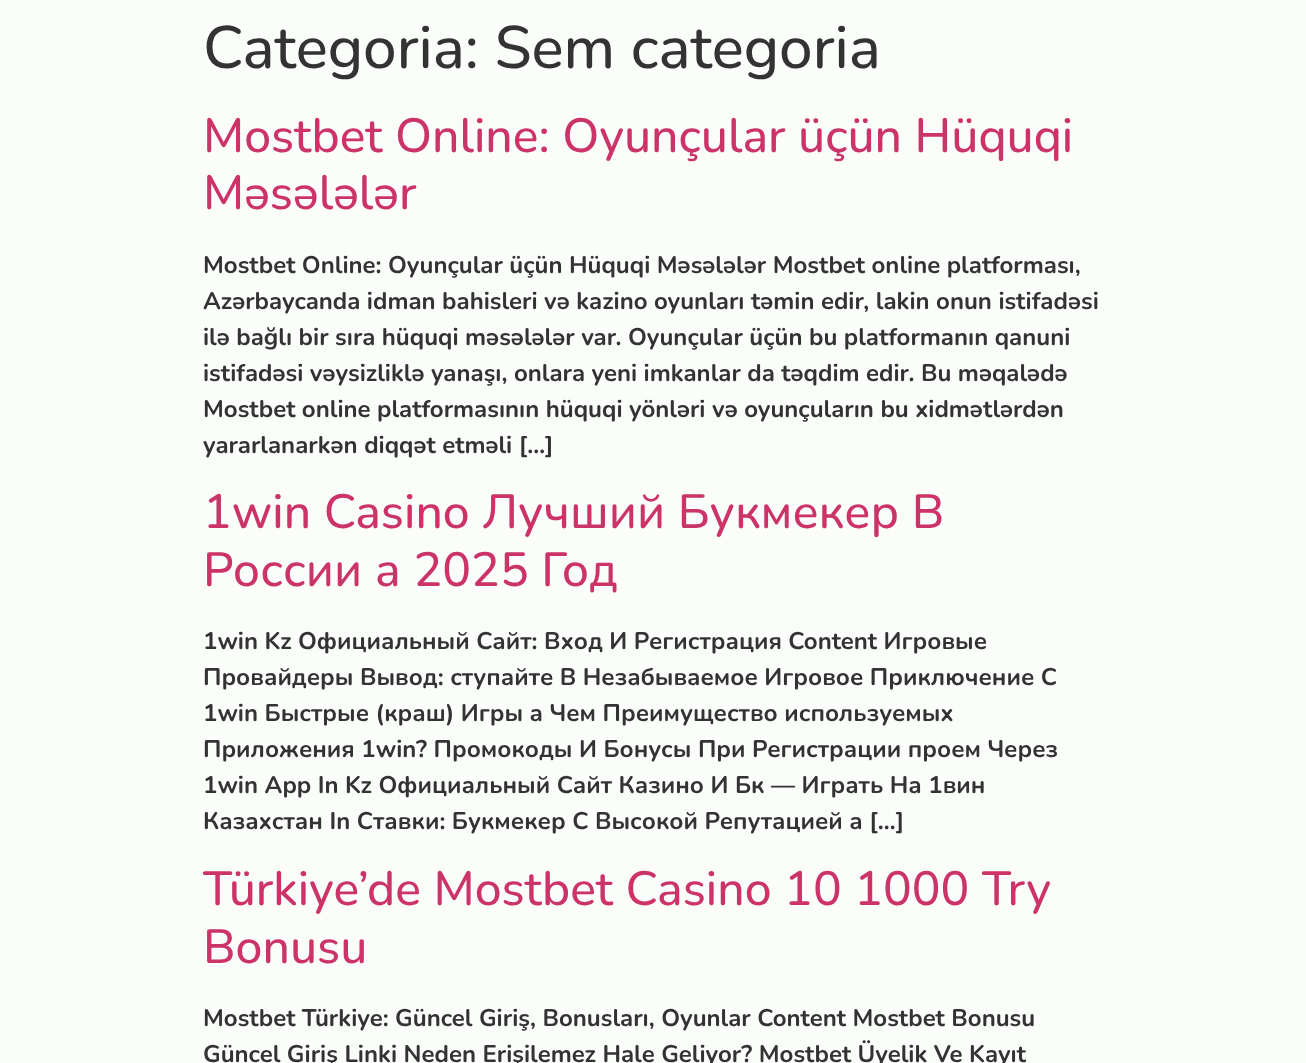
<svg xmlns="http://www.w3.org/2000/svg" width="1306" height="1063">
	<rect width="100%" height="100%" fill="#FAFDFA" />
	<text x="203" y="68" font-family="Nunito" font-size="60" font-weight="500" fill="#333333">Categoria: Sem categoria</text>
	<g font-family="Nunito" font-size="48" font-weight="500" fill="#CC3366">
		<text x="203" y="152">Mostbet Online: Oyunçular üçün Hüquqi</text>
		<text x="203" y="209">Məsələlər</text>
	</g>
	<g font-family="Nunito" font-size="24" font-weight="700" fill="#333333">
		<text x="203" y="273">Mostbet Online: Oyunçular üçün Hüquqi Məsələlər Mostbet online platforması,</text>
		<text x="203" y="309">Azərbaycanda idman bahisleri və kazino oyunları təmin edir, lakin onun istifadəsi</text>
		<text x="203" y="345">ilə bağlı bir sıra hüquqi məsələlər var. Oyunçular üçün bu platformanın qanuni</text>
		<text x="203" y="381">istifadəsi vəysizliklə yanaşı, onlara yeni imkanlar da təqdim edir. Bu məqalədə</text>
		<text x="203" y="417">Mostbet online platformasının hüquqi yönləri və oyunçuların bu xidmətlərdən</text>
		<text x="203" y="453">yararlanarkən diqqət etməli […]</text>
	</g>
	<g font-family="Nunito" font-size="48" font-weight="500" fill="#CC3366">
		<text x="203" y="528">1win Casino Лучший Букмекер В</text>
		<text x="203" y="586">России а 2025 Год</text>
	</g>
	<g font-family="Nunito" font-size="24" font-weight="700" fill="#333333">
		<text x="203" y="649">1win Kz Официальный Сайт: Вход И Регистрация Content Игровые</text>
		<text x="203" y="685">Провайдеры Вывод: ступайте В Незабываемое Игровое Приключение С</text>
		<text x="203" y="721">1win Быстрые (краш) Игры а Чем Преимущество используемых</text>
		<text x="203" y="757">Приложения 1win? Промокоды И Бонусы При Регистрации проем Через</text>
		<text x="203" y="793">1win App In Kz Официальный Сайт Казино И Бк — Играть На 1вин</text>
		<text x="203" y="829">Казахстан In Ставки: Букмекер С Высокой Репутацией а […]</text>
	</g>
	<g font-family="Nunito" font-size="48" font-weight="500" fill="#CC3366">
		<text x="203" y="905">Türkiye’de Mostbet Casino 10 1000 Try</text>
		<text x="203" y="963">Bonusu</text>
	</g>
	<g font-family="Nunito" font-size="24" font-weight="700" fill="#333333">
		<text x="203" y="1026">Mostbet Türkiye: Güncel Giriş, Bonusları, Oyunlar Content Mostbet Bonusu</text>
		<text x="203" y="1062">Güncel Giriş Linki Neden Erişilemez Hale Geliyor? Mostbet Üyelik Ve Kayıt</text>
	</g>
</svg>
